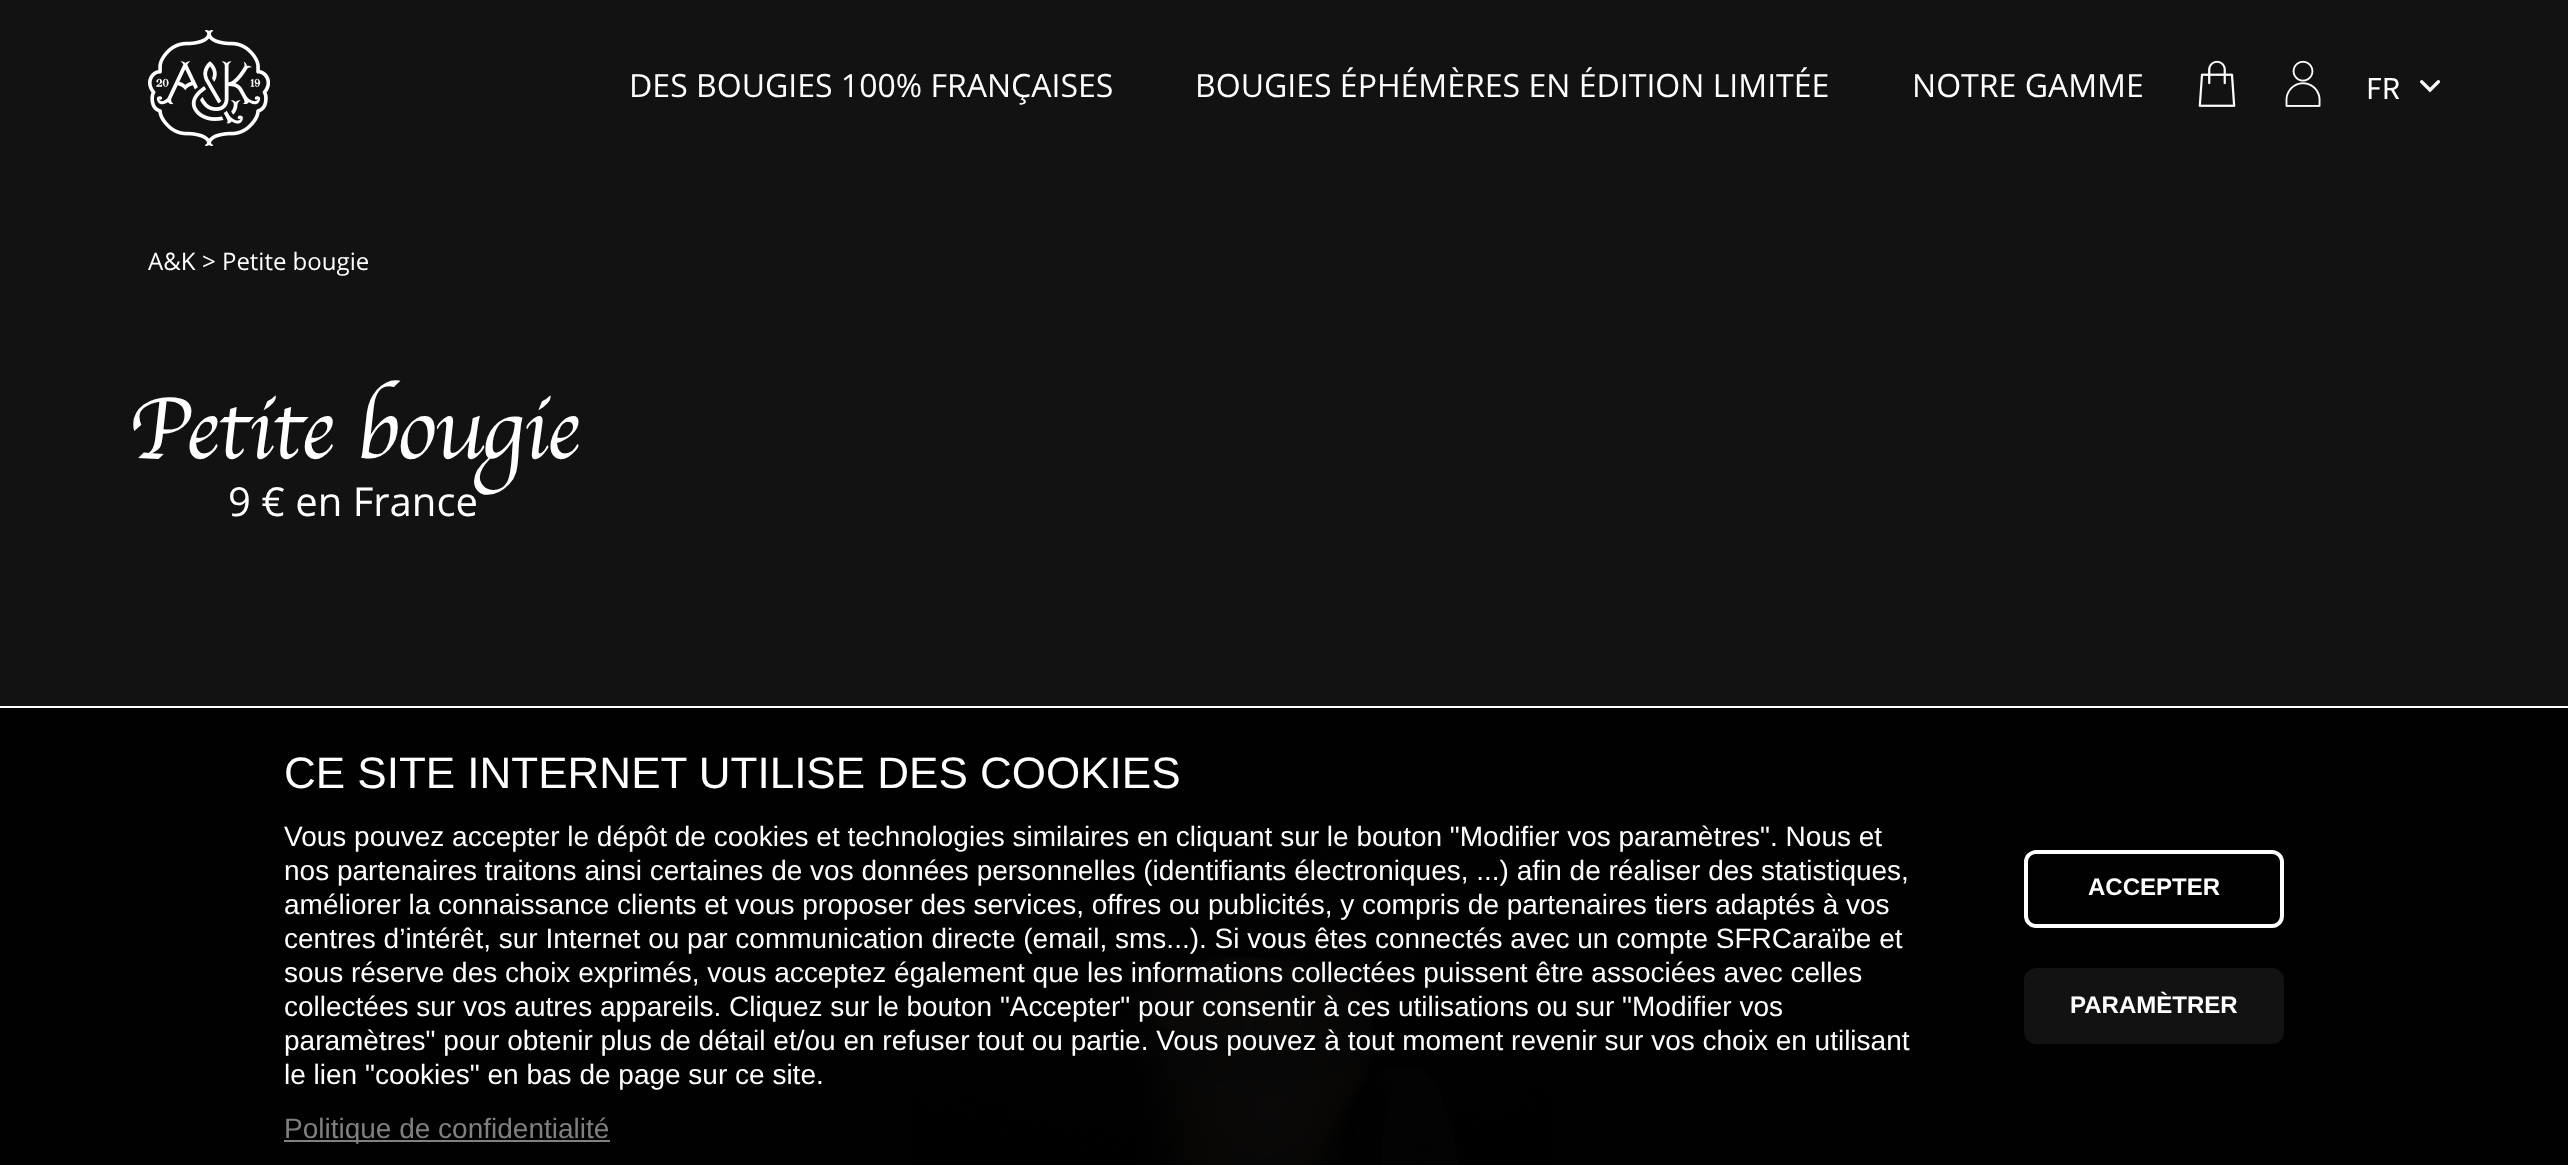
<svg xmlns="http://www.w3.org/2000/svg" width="2568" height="1165">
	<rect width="100%" height="100%" fill="#121212" />
	<rect x="0" y="708" width="2568" height="457" fill="#010101" />
	<image x="148" y="30" width="122" height="116" href="assets/img1.png" />
	<g font-family="Open Sans" font-size="32" fill="#FFFFFF">
		<text x="629" y="97">DES BOUGIES 100% FRANÇAISES</text>
		<text x="1195" y="97">BOUGIES ÉPHÉMÈRES EN ÉDITION LIMITÉE</text>
		<text x="1912" y="97">NOTRE GAMME</text>
	</g>
	<image x="2198" y="60" width="38" height="47" href="assets/img2.png" />
	<image x="2285" y="60" width="36" height="47" href="assets/img3.png" />
	<text x="2366" y="99" font-family="Source Sans Pro" font-size="32" fill="#FFFFFF">FR</text>
	<image x="2420" y="80" width="20" height="13" href="assets/img4.png" />
	<g font-family="Open Sans" font-size="24" fill="#FFFFFF">
		<text x="148" y="270">A&amp;K</text>
		<text x="202" y="270">&gt; Petite bougie</text>
	</g>
	<text x="128" y="458" font-family="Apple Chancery" font-size="90" letter-spacing="-2" fill="#FFFFFF">Petite bougie</text>
	<text x="228" y="516" font-family="Open Sans" font-size="40" fill="#FFFFFF">9 € en France</text>
	<image x="910" y="766" width="648" height="399" href="assets/img5.png" />
	<rect x="0" y="706" width="2568" height="2" fill="#FFFFFF" />
	<text x="284" y="788" font-family="Liberation Sans" font-size="44" fill="#FFFFFF">CE SITE INTERNET UTILISE DES COOKIES</text>
	<g font-family="Liberation Sans" font-size="28" fill="#FFFFFF">
		<text x="284" y="846">Vous pouvez accepter le dépôt de cookies et technologies similaires en cliquant sur le bouton "Modifier vos paramètres". Nous et</text>
		<text x="284" y="880">nos partenaires traitons ainsi certaines de vos données personnelles (identifiants électroniques, ...) afin de réaliser des statistiques,</text>
		<text x="284" y="914">améliorer la connaissance clients et vous proposer des services, offres ou publicités, y compris de partenaires tiers adaptés à vos</text>
		<text x="284" y="948">centres d’intérêt, sur Internet ou par communication directe (email, sms...). Si vous êtes connectés avec un compte SFRCaraïbe et</text>
		<text x="284" y="982">sous réserve des choix exprimés, vous acceptez également que les informations collectées puissent être associées avec celles</text>
		<text x="284" y="1016">collectées sur vos autres appareils. Cliquez sur le bouton "Accepter" pour consentir à ces utilisations ou sur "Modifier vos</text>
		<text x="284" y="1050">paramètres" pour obtenir plus de détail et/ou en refuser tout ou partie. Vous pouvez à tout moment revenir sur vos choix en utilisant</text>
		<text x="284" y="1084">le lien "cookies" en bas de page sur ce site.</text>
	</g>
	<rect x="284" y="1140" width="326" height="2" fill="#808080" />
	<text x="284" y="1138" font-family="Liberation Sans" font-size="28" fill="#808080">Politique de confidentialité</text>
	<rect x="2026" y="852" width="256" height="74" rx="10" fill="none" stroke="#FFFFFF" stroke-width="4" />
	<text x="2088" y="895" font-family="Liberation Sans" font-size="24" font-weight="700" fill="#FFFFFF">ACCEPTER</text>
	<rect x="2026" y="970" width="256" height="72" rx="10" fill="#121212" stroke="#121212" stroke-width="4" />
	<text x="2070" y="1013" font-family="Liberation Sans" font-size="24" font-weight="700" fill="#FFFFFF">PARAMÈTRER</text>
</svg>
